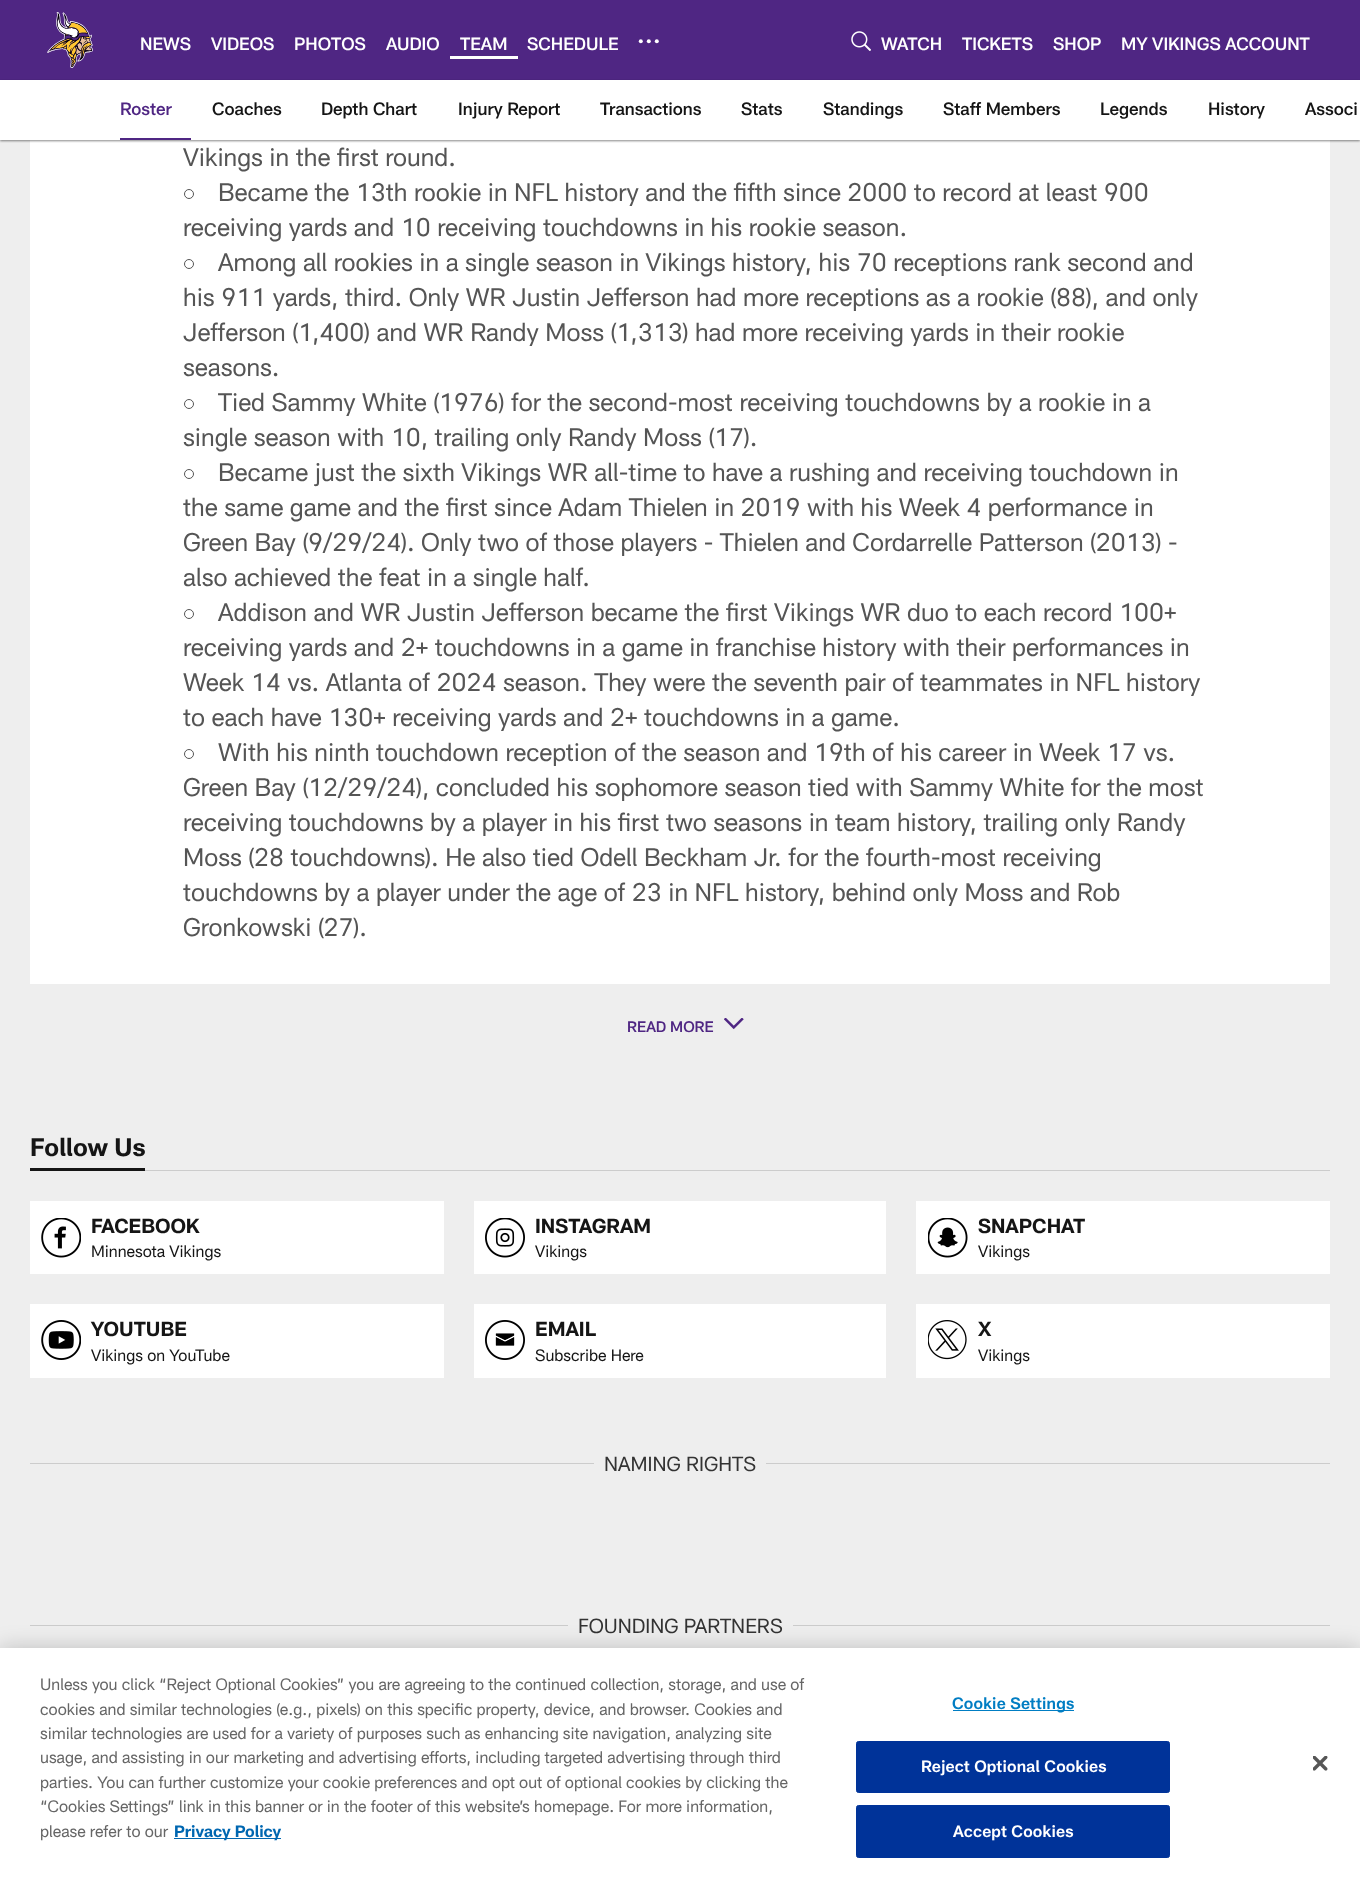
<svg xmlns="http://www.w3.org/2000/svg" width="1360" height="1882">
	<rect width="100%" height="100%" fill="#EEEEEE" />
	<rect x="0" y="0" width="1360" height="80" fill="#4F2683" />
	<image x="47" y="12" width="46" height="56" href="assets/img1.png" />
	<g font-family="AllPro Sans" font-size="17.5" font-weight="500" fill="#FFFFFF">
		<text x="140" y="50">NEWS</text>
		<text x="211" y="50">VIDEOS</text>
		<text x="294" y="50">PHOTOS</text>
		<text x="386" y="50">AUDIO</text>
	</g>
	<rect x="450" y="56" width="68" height="3" fill="#FFFFFF" />
	<g font-family="AllPro Sans" font-size="17.5" font-weight="500" fill="#FFFFFF">
		<text x="460" y="50">TEAM</text>
		<text x="527" y="50">SCHEDULE</text>
	</g>
	<circle cx="656.8" cy="41.2" r="2" fill="#FFFFFF" />
	<circle cx="648.8" cy="41.2" r="2" fill="#FFFFFF" />
	<circle cx="640.8" cy="41.2" r="2" fill="#FFFFFF" />
	<image x="851" y="31" width="20" height="20" href="assets/img2.png" />
	<g font-family="AllPro Sans" font-size="17.5" font-weight="500" fill="#FFFFFF">
		<text x="881" y="50">WATCH</text>
		<text x="962" y="50">TICKETS</text>
		<text x="1053" y="50">SHOP</text>
		<text x="1121" y="50">MY VIKINGS ACCOUNT</text>
	</g>
	<rect x="30" y="140" width="1300" height="844" fill="#FFFFFF" />
	<rect x="0" y="81" width="1360" height="60" fill="#000000" fill-opacity="0.47" filter="blur(1px)" />
	<rect x="0" y="80" width="1360" height="60" fill="#FFFFFF" />
	<rect x="120" y="138" width="71" height="2" fill="#4F2683" />
	<text x="120" y="115" font-family="AllPro Sans" font-size="17.5" font-weight="500" fill="#4F2683">Roster</text>
	<g font-family="AllPro Sans" font-size="17.5" font-weight="500" fill="#151515">
		<text x="212" y="115">Coaches</text>
		<text x="321" y="115">Depth Chart</text>
		<text x="458" y="115">Injury Report</text>
		<text x="600" y="115">Transactions</text>
		<text x="741" y="115">Stats</text>
		<text x="823" y="115">Standings</text>
		<text x="943" y="115">Staff Members</text>
		<text x="1100" y="115">Legends</text>
		<text x="1208" y="115">History</text>
		<text x="1305" y="115">Associ</text>
	</g>
	<text x="183" y="166" font-family="AllPro Sans" font-size="25" fill="#555555">Vikings in the first round.</text>
	<circle cx="189" cy="194" r="4.5" fill="none" stroke="#555555" />
	<g font-family="AllPro Sans" font-size="25" fill="#555555">
		<text x="218" y="201">Became the 13th rookie in NFL history and the fifth since 2000 to record at least 900</text>
		<text x="183" y="236">receiving yards and 10 receiving touchdowns in his rookie season.</text>
	</g>
	<circle cx="189" cy="264" r="4.5" fill="none" stroke="#555555" />
	<g font-family="AllPro Sans" font-size="25" fill="#555555">
		<text x="218" y="271">Among all rookies in a single season in Vikings history, his 70 receptions rank second and</text>
		<text x="183" y="306">his 911 yards, third. Only WR Justin Jefferson had more receptions as a rookie (88), and only</text>
		<text x="183" y="341">Jefferson (1,400) and WR Randy Moss (1,313) had more receiving yards in their rookie</text>
		<text x="183" y="376">seasons.</text>
	</g>
	<circle cx="189" cy="404" r="4.5" fill="none" stroke="#555555" />
	<g font-family="AllPro Sans" font-size="25" fill="#555555">
		<text x="218" y="411">Tied Sammy White (1976) for the second-most receiving touchdowns by a rookie in a</text>
		<text x="183" y="446">single season with 10, trailing only Randy Moss (17).</text>
	</g>
	<circle cx="189" cy="474" r="4.5" fill="none" stroke="#555555" />
	<g font-family="AllPro Sans" font-size="25" fill="#555555">
		<text x="218" y="481">Became just the sixth Vikings WR all-time to have a rushing and receiving touchdown in</text>
		<text x="183" y="516">the same game and the first since Adam Thielen in 2019 with his Week 4 performance in</text>
		<text x="183" y="551">Green Bay (9/29/24). Only two of those players - Thielen and Cordarrelle Patterson (2013) -</text>
		<text x="183" y="586">also achieved the feat in a single half.</text>
	</g>
	<circle cx="189" cy="614" r="4.5" fill="none" stroke="#555555" />
	<g font-family="AllPro Sans" font-size="25" fill="#555555">
		<text x="218" y="621">Addison and WR Justin Jefferson became the first Vikings WR duo to each record 100+</text>
		<text x="183" y="656">receiving yards and 2+ touchdowns in a game in franchise history with their performances in</text>
		<text x="183" y="691">Week 14 vs. Atlanta of 2024 season. They were the seventh pair of teammates in NFL history</text>
		<text x="183" y="726">to each have 130+ receiving yards and 2+ touchdowns in a game.</text>
	</g>
	<circle cx="189" cy="754" r="4.5" fill="none" stroke="#555555" />
	<g font-family="AllPro Sans" font-size="25" fill="#555555">
		<text x="218" y="761">With his ninth touchdown reception of the season and 19th of his career in Week 17 vs.</text>
		<text x="183" y="796">Green Bay (12/29/24), concluded his sophomore season tied with Sammy White for the most</text>
		<text x="183" y="831">receiving touchdowns by a player in his first two seasons in team history, trailing only Randy</text>
		<text x="183" y="866">Moss (28 touchdowns). He also tied Odell Beckham Jr. for the fourth-most receiving</text>
		<text x="183" y="901">touchdowns by a player under the age of 23 in NFL history, behind only Moss and Rob</text>
		<text x="183" y="936">Gronkowski (27).</text>
	</g>
	<text x="627" y="1032" font-family="AllPro Sans" font-size="15" font-weight="500" fill="#4F2683">READ MORE</text>
	<image x="724" y="1018" width="20" height="12" href="assets/img3.png" />
	<rect x="145" y="1170" width="1185" height="1" fill="#CCCCCC" />
	<rect x="30" y="1168" width="115" height="3" fill="#151515" />
	<text x="30" y="1156" font-family="AllPro Sans" font-size="25" font-weight="700" fill="#151515">Follow Us</text>
	<rect x="30" y="1201" width="414" height="73" fill="#FFFFFF" />
	<image x="41" y="1218" width="40" height="40" href="assets/img4.png" />
	<text x="91" y="1233" font-family="AllPro Sans" font-size="20" font-weight="700" fill="#151515">FACEBOOK</text>
	<text x="91" y="1257" font-family="AllPro Sans" font-size="16.25" fill="#151515">Minnesota Vikings</text>
	<rect x="474" y="1201" width="412" height="73" fill="#FFFFFF" />
	<image x="485" y="1218" width="40" height="40" href="assets/img5.png" />
	<text x="535" y="1233" font-family="AllPro Sans" font-size="20" font-weight="700" fill="#151515">INSTAGRAM</text>
	<text x="535" y="1257" font-family="AllPro Sans" font-size="16.25" fill="#151515">Vikings</text>
	<rect x="916" y="1201" width="414" height="73" fill="#FFFFFF" />
	<image x="928" y="1218" width="40" height="40" href="assets/img6.png" />
	<text x="978" y="1233" font-family="AllPro Sans" font-size="20" font-weight="700" fill="#151515">SNAPCHAT</text>
	<text x="978" y="1257" font-family="AllPro Sans" font-size="16.25" fill="#151515">Vikings</text>
	<rect x="30" y="1304" width="414" height="74" fill="#FFFFFF" />
	<image x="41" y="1320" width="40" height="40" href="assets/img7.png" />
	<text x="91" y="1336" font-family="AllPro Sans" font-size="20" font-weight="700" fill="#151515">YOUTUBE</text>
	<text x="91" y="1361" font-family="AllPro Sans" font-size="16.25" fill="#151515">Vikings on YouTube</text>
	<rect x="474" y="1304" width="412" height="74" fill="#FFFFFF" />
	<image x="485" y="1320" width="40" height="40" href="assets/img8.png" />
	<text x="535" y="1336" font-family="AllPro Sans" font-size="20" font-weight="700" fill="#151515">EMAIL</text>
	<text x="535" y="1361" font-family="AllPro Sans" font-size="16.25" fill="#151515">Subscribe Here</text>
	<rect x="916" y="1304" width="414" height="74" fill="#FFFFFF" />
	<image x="928" y="1320" width="39" height="40" href="assets/img9.png" />
	<text x="978" y="1336" font-family="AllPro Sans" font-size="20" font-weight="700" fill="#151515">X</text>
	<text x="978" y="1361" font-family="AllPro Sans" font-size="16.25" fill="#151515">Vikings</text>
	<rect x="30" y="1463" width="564" height="1" fill="#CCCCCC" />
	<text x="604" y="1471" font-family="AllPro Sans" font-size="20" fill="#333333">NAMING RIGHTS</text>
	<rect x="766" y="1463" width="564" height="1" fill="#CCCCCC" />
	<rect x="30" y="1625" width="538" height="1" fill="#CCCCCC" />
	<text x="578" y="1633" font-family="AllPro Sans" font-size="20" fill="#333333">FOUNDING PARTNERS</text>
	<rect x="793" y="1625" width="537" height="1" fill="#CCCCCC" />
	<rect x="0" y="1648" width="1360" height="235" fill="#000000" fill-opacity="0.2" filter="blur(11px)" />
	<rect x="0" y="1648" width="1360" height="234" fill="#FFFFFF" />
	<g font-family="AllPro Sans" font-size="16.25" fill="#666666">
		<text x="40" y="1690">Unless you click “Reject Optional Cookies” you are agreeing to the continued collection, storage, and use of</text>
		<text x="40" y="1715">cookies and similar technologies (e.g., pixels) on this specific property, device, and browser. Cookies and</text>
		<text x="40" y="1739">similar technologies are used for a variety of purposes such as enhancing site navigation, analyzing site</text>
		<text x="40" y="1763">usage, and assisting in our marketing and advertising efforts, including targeted advertising through third</text>
		<text x="40" y="1788">parties. You can further customize your cookie preferences and opt out of optional cookies by clicking the</text>
		<text x="40" y="1812">“Cookies Settings” link in this banner or in the footer of this website’s homepage. For more information,</text>
		<text x="40" y="1837">please refer to our</text>
	</g>
	<rect x="174" y="1838" width="107" height="1" fill="#0067B1" />
	<text x="174" y="1837" font-family="AllPro Sans" font-size="16.25" font-weight="700" fill="#0067B1">Privacy Policy</text>
	<rect x="953" y="1710" width="121" height="1" fill="#007DC3" />
	<text x="952" y="1709" font-family="AllPro Sans" font-size="16.25" font-weight="600" letter-spacing="0.2" fill="#007DC3">Cookie Settings</text>
	<rect x="856.5" y="1741.5" width="313" height="51" rx="2" fill="#003399" stroke="#003399" />
	<text x="921" y="1772" font-family="AllPro Sans" font-size="16.25" font-weight="600" letter-spacing="0.2" fill="#FFFFFF">Reject Optional Cookies</text>
	<rect x="856.5" y="1805.5" width="313" height="52" rx="2" fill="#003399" stroke="#003399" />
	<text x="953" y="1837" font-family="AllPro Sans" font-size="16.25" font-weight="600" letter-spacing="0.2" fill="#FFFFFF">Accept Cookies</text>
	<image x="1313" y="1756" width="15" height="15" href="assets/img10.png" />
</svg>
